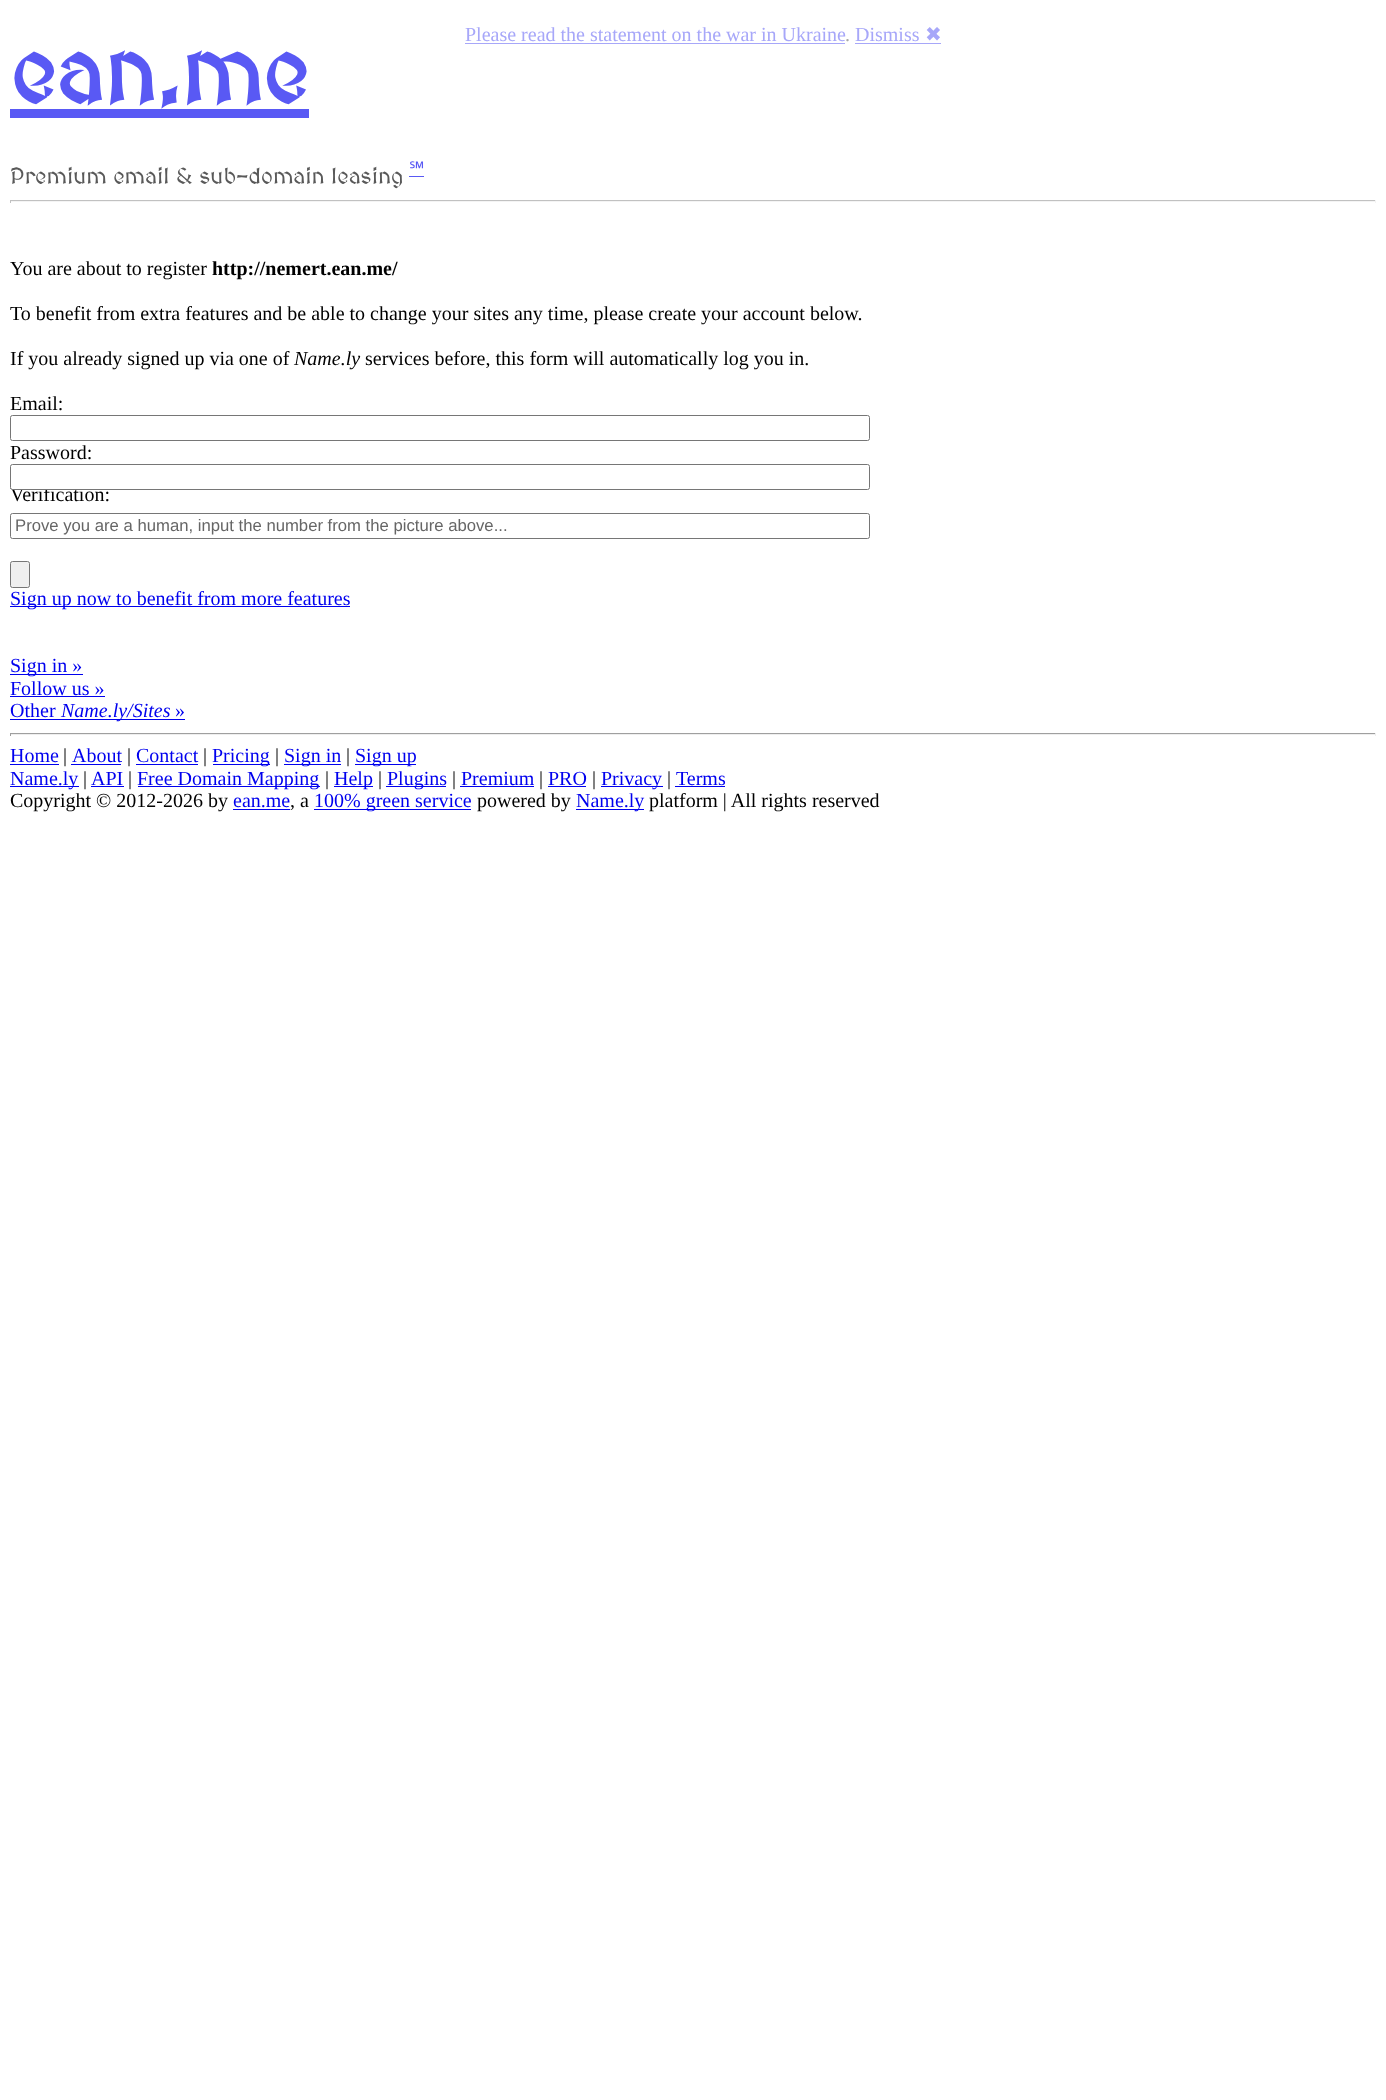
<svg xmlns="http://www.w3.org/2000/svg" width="1386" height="2100">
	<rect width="100%" height="100%" fill="#FFFFFF" />
	<text x="465" y="41" font-family="Liberation Serif" font-size="20" fill="#A7A7F9">Please read the statement on the war in Ukraine</text>
	<rect x="465" y="43" width="380" height="1" fill="#A7A7F9" />
	<text x="845" y="41" font-family="Liberation Serif" font-size="20" fill="#A7A7A7">.</text>
	<text x="855" y="41" font-family="Liberation Serif" font-size="20" fill="#A7A7F9">Dismiss</text>
	<rect x="855" y="43" width="86" height="1" fill="#A7A7F9" />
	<text x="925" y="41" font-family="DejaVu Sans" font-size="20" fill="#A7A7F9">✖</text>
	<text x="10" y="104" font-family="MedievalSharp" font-size="90" font-weight="700" fill="#5959F4">ean.me</text>
	<rect x="10" y="109" width="299" height="9" fill="#5959F4" />
	<text x="409" y="175" font-family="Noto Sans" font-size="19" fill="#5959F4">℠</text>
	<rect x="409" y="176" width="15" height="1" fill="#5959F4" />
	<text x="10" y="184" font-family="MedievalSharp" font-size="22.5" font-weight="500" fill="#595959">Premium email &amp; sub-domain leasing</text>
	<rect x="10" y="200" width="1366" height="1" fill="#C1C1C1" />
	<rect x="1375" y="200" width="1" height="3" fill="#F4F4F4" />
	<rect x="10" y="201" width="1366" height="1" fill="#F4F4F4" />
	<rect x="10" y="200" width="1" height="3" fill="#C1C1C1" />
	<text x="10" y="275" font-family="Liberation Serif" font-size="20" fill="#000000">You are about to register</text>
	<text x="212" y="275" font-family="Liberation Serif" font-size="20" font-weight="700" fill="#000000">http://nemert.ean.me/</text>
	<g font-family="Liberation Serif" font-size="20" fill="#000000">
		<text x="10" y="320">To benefit from extra features and be able to change your sites any time, please create your account below.</text>
		<text x="10" y="365">If you already signed up via one of</text>
	</g>
	<text x="294" y="365" font-family="Liberation Serif" font-size="20" font-style="italic" fill="#000000">Name.ly</text>
	<g font-family="Liberation Serif" font-size="20" fill="#000000">
		<text x="365" y="365">services before, this form will automatically log you in.</text>
		<text x="10" y="410">Email:</text>
	</g>
	<rect x="10.5" y="415.5" width="859" height="25" rx="2" fill="none" stroke="#767676" />
	<g font-family="Liberation Serif" font-size="20" fill="#000000">
		<text x="10" y="459">Password:</text>
		<text x="10" y="501">Verification:</text>
	</g>
	<rect x="10.5" y="464.5" width="859" height="25" rx="2" fill="#FFFFFF" stroke="#767676" />
	<rect x="10.5" y="513.5" width="859" height="25" rx="2" fill="none" stroke="#767676" />
	<text x="15" y="531" font-family="Liberation Sans" font-size="16.7" fill="#666666">Prove you are a human, input the number from the picture above...</text>
	<rect x="10.5" y="561.5" width="19" height="26" rx="2" fill="#EFEFEF" stroke="#767676" />
	<rect x="10" y="606" width="340" height="1" fill="#0000EE" />
	<text x="10" y="605" font-family="Liberation Serif" font-size="20" fill="#0000EE">Sign up now to benefit from more features</text>
	<rect x="10" y="674" width="73" height="1" fill="#0000EE" />
	<g font-family="Liberation Serif" font-size="20" fill="#0000EE">
		<text x="10" y="672">Sign in »</text>
		<text x="10" y="695">Follow us »</text>
	</g>
	<rect x="10" y="696" width="95" height="1" fill="#0000EE" />
	<text x="10" y="717" font-family="Liberation Serif" font-size="20" fill="#0000EE">Other</text>
	<rect x="10" y="719" width="175" height="1" fill="#0000EE" />
	<text x="61" y="717" font-family="Liberation Serif" font-size="20" font-style="italic" fill="#0000EE">Name.ly/Sites</text>
	<text x="175" y="717" font-family="Liberation Serif" font-size="20" fill="#0000EE">»</text>
	<rect x="10" y="733" width="1366" height="1" fill="#9F9F9F" />
	<rect x="1375" y="733" width="1" height="3" fill="#EEEEEE" />
	<rect x="10" y="734" width="1366" height="1" fill="#EEEEEE" />
	<rect x="10" y="733" width="1" height="3" fill="#9F9F9F" />
	<text x="10" y="762" font-family="Liberation Serif" font-size="20" fill="#0000EE">Home</text>
	<rect x="10" y="764" width="49" height="1" fill="#0000EE" />
	<text x="63" y="762" font-family="Liberation Serif" font-size="20" fill="#000000">|</text>
	<text x="72" y="762" font-family="Liberation Serif" font-size="20" fill="#0000EE">About</text>
	<rect x="71" y="764" width="50" height="1" fill="#0000EE" />
	<text x="127" y="762" font-family="Liberation Serif" font-size="20" fill="#000000">|</text>
	<text x="136" y="762" font-family="Liberation Serif" font-size="20" fill="#0000EE">Contact</text>
	<rect x="136" y="764" width="62" height="1" fill="#0000EE" />
	<text x="203" y="762" font-family="Liberation Serif" font-size="20" fill="#000000">|</text>
	<rect x="213" y="764" width="57" height="1" fill="#0000EE" />
	<text x="212" y="762" font-family="Liberation Serif" font-size="20" fill="#0000EE">Pricing</text>
	<text x="275" y="762" font-family="Liberation Serif" font-size="20" fill="#000000">|</text>
	<rect x="284" y="764" width="57" height="1" fill="#0000EE" />
	<text x="284" y="762" font-family="Liberation Serif" font-size="20" fill="#0000EE">Sign in</text>
	<text x="346" y="762" font-family="Liberation Serif" font-size="20" fill="#000000">|</text>
	<rect x="355" y="764" width="61" height="1" fill="#0000EE" />
	<text x="355" y="762" font-family="Liberation Serif" font-size="20" fill="#0000EE">Sign up</text>
	<rect x="10" y="786" width="69" height="1" fill="#0000EE" />
	<text x="10" y="785" font-family="Liberation Serif" font-size="20" fill="#0000EE">Name.ly</text>
	<text x="83" y="785" font-family="Liberation Serif" font-size="20" fill="#000000">|</text>
	<text x="91" y="785" font-family="Liberation Serif" font-size="20" fill="#0000EE">API</text>
	<rect x="91" y="786" width="33" height="1" fill="#0000EE" />
	<text x="128" y="785" font-family="Liberation Serif" font-size="20" fill="#000000">|</text>
	<rect x="138" y="786" width="182" height="1" fill="#0000EE" />
	<text x="137" y="785" font-family="Liberation Serif" font-size="20" fill="#0000EE">Free Domain Mapping</text>
	<text x="325" y="785" font-family="Liberation Serif" font-size="20" fill="#000000">|</text>
	<rect x="334" y="786" width="39" height="1" fill="#0000EE" />
	<text x="334" y="785" font-family="Liberation Serif" font-size="20" fill="#0000EE">Help</text>
	<text x="378" y="785" font-family="Liberation Serif" font-size="20" fill="#000000">|</text>
	<rect x="386" y="786" width="60" height="1" fill="#0000EE" />
	<text x="387" y="785" font-family="Liberation Serif" font-size="20" fill="#0000EE">Plugins</text>
	<text x="452" y="785" font-family="Liberation Serif" font-size="20" fill="#000000">|</text>
	<text x="461" y="785" font-family="Liberation Serif" font-size="20" fill="#0000EE">Premium</text>
	<rect x="460" y="786" width="74" height="1" fill="#0000EE" />
	<text x="539" y="785" font-family="Liberation Serif" font-size="20" fill="#000000">|</text>
	<text x="548" y="785" font-family="Liberation Serif" font-size="20" fill="#0000EE">PRO</text>
	<rect x="548" y="786" width="38" height="1" fill="#0000EE" />
	<text x="592" y="785" font-family="Liberation Serif" font-size="20" fill="#000000">|</text>
	<rect x="601" y="786" width="62" height="1" fill="#0000EE" />
	<text x="601" y="785" font-family="Liberation Serif" font-size="20" fill="#0000EE">Privacy</text>
	<text x="667" y="785" font-family="Liberation Serif" font-size="20" fill="#000000">|</text>
	<text x="676" y="785" font-family="Liberation Serif" font-size="20" fill="#0000EE">Terms</text>
	<rect x="675" y="786" width="50" height="1" fill="#0000EE" />
	<text x="10" y="807" font-family="Liberation Serif" font-size="20" fill="#000000">Copyright © 2012-2026 by</text>
	<text x="233" y="807" font-family="Liberation Serif" font-size="20" fill="#0000EE">ean.me</text>
	<rect x="233" y="809" width="57" height="1" fill="#0000EE" />
	<text x="290" y="807" font-family="Liberation Serif" font-size="20" fill="#000000">, a</text>
	<rect x="314" y="809" width="157" height="1" fill="#0000EE" />
	<text x="314" y="807" font-family="Liberation Serif" font-size="20" fill="#0000EE">100% green service</text>
	<text x="477" y="807" font-family="Liberation Serif" font-size="20" fill="#000000">powered by</text>
	<rect x="576" y="809" width="68" height="1" fill="#0000EE" />
	<text x="576" y="807" font-family="Liberation Serif" font-size="20" fill="#0000EE">Name.ly</text>
	<text x="649" y="807" font-family="Liberation Serif" font-size="20" fill="#000000">platform | All rights reserved</text>
</svg>
